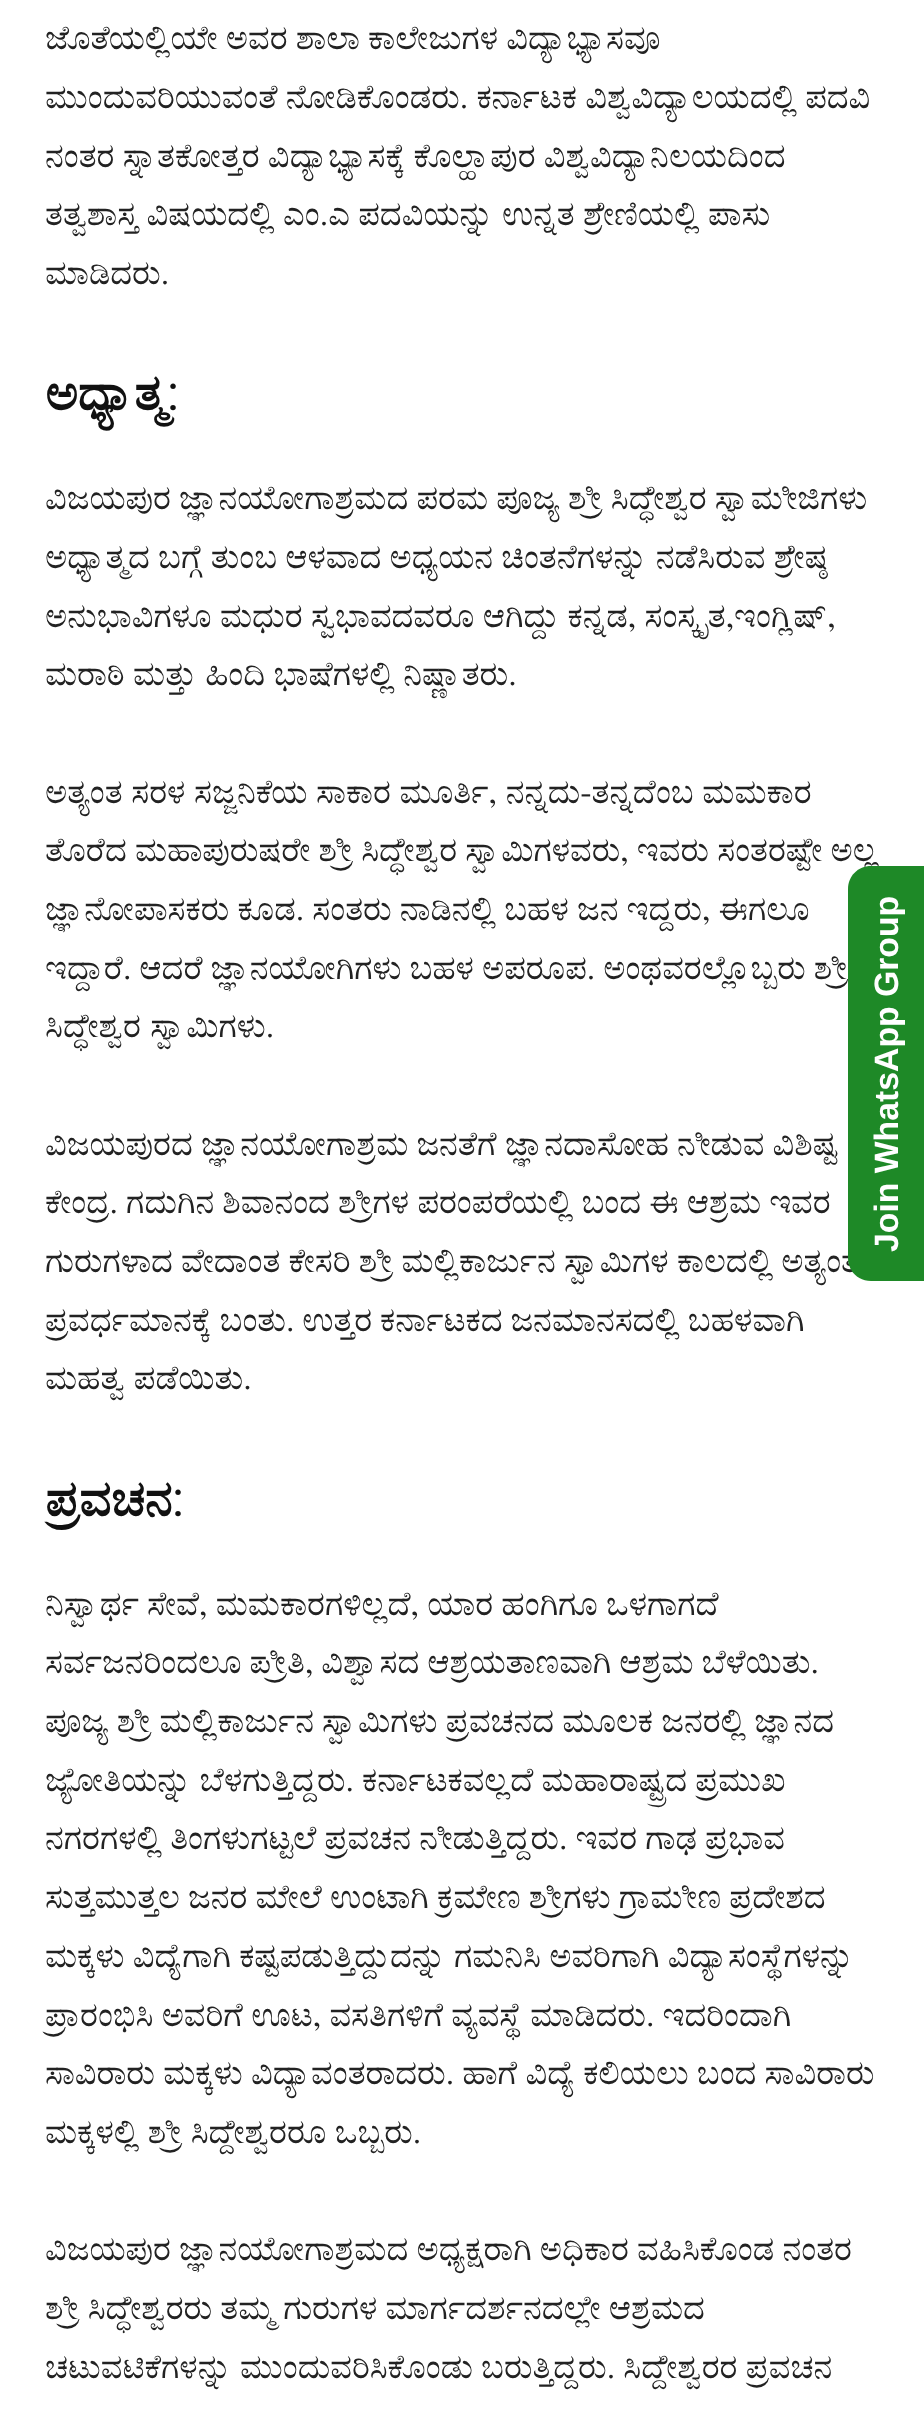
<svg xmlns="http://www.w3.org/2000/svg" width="924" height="2419">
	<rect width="100%" height="100%" fill="#FFFFFF" />
	<g font-family="FreeSerif" font-size="33.75" fill="#222222">
		<text x="45" y="49" word-spacing="-0.25">ಜೊತೆಯಲ್ಲಿಯೇ ಅವರ ಶಾಲಾ ಕಾಲೇಜುಗಳ ವಿದ್ಯಾಭ್ಯಾಸವೂ</text>
		<text x="45" y="108" word-spacing="-0.25">ಮುಂದುವರಿಯುವಂತೆ ನೋಡಿಕೊಂಡರು. ಕರ್ನಾಟಕ ವಿಶ್ವವಿದ್ಯಾಲಯದಲ್ಲಿ ಪದವಿ</text>
		<text x="45" y="167" word-spacing="-0.25">ನಂತರ ಸ್ನಾತಕೋತ್ತರ ವಿದ್ಯಾಭ್ಯಾಸಕ್ಕೆ ಕೊಲ್ಹಾಪುರ ವಿಶ್ವವಿದ್ಯಾನಿಲಯದಿಂದ</text>
		<text x="45" y="225">ತತ್ವಶಾಸ್ತ ವಿಷಯದಲ್ಲಿ ಎಂ.ಎ ಪದವಿಯನ್ನು ಉನ್ನತ ಶ್ರೇಣಿಯಲ್ಲಿ ಪಾಸು</text>
		<text x="45" y="284">ಮಾಡಿದರು.</text>
	</g>
	<text x="45" y="410" font-family="FreeSerif" font-size="49.5" font-weight="700" fill="#111111">ಅಧ್ಯಾತ್ಮ</text>
	<text x="167" y="410" font-family="Roboto" font-size="49.5" fill="#111111">:</text>
	<g font-family="FreeSerif" font-size="33.75" fill="#222222">
		<text x="45" y="509" word-spacing="-0.25">ವಿಜಯಪುರ ಜ್ಞಾನಯೋಗಾಶ್ರಮದ ಪರಮ ಪೂಜ್ಯ ಶ್ರೀ ಸಿದ್ಧೇಶ್ವರ ಸ್ವಾಮೀಜಿಗಳು</text>
		<text x="45" y="568" word-spacing="-0.25">ಅಧ್ಯಾತ್ಮದ ಬಗ್ಗೆ ತುಂಬ ಆಳವಾದ ಅಧ್ಯಯನ ಚಿಂತನೆಗಳನ್ನು ನಡೆಸಿರುವ ಶ್ರೇಷ್ಠ</text>
		<text x="45" y="627">ಅನುಭಾವಿಗಳೂ ಮಧುರ ಸ್ವಭಾವದವರೂ ಆಗಿದ್ದು ಕನ್ನಡ, ಸಂಸ್ಕೃತ,ಇಂಗ್ಲಿಷ್,</text>
		<text x="45" y="685">ಮರಾಠಿ ಮತ್ತು ಹಿಂದಿ ಭಾಷೆಗಳಲ್ಲಿ ನಿಷ್ಣಾತರು.</text>
		<text x="45" y="803" word-spacing="0.25">ಅತ್ಯಂತ ಸರಳ ಸಜ್ಜನಿಕೆಯ ಸಾಕಾರ ಮೂರ್ತಿ, ನನ್ನದು-ತನ್ನದೆಂಬ ಮಮಕಾರ</text>
		<text x="45" y="861" word-spacing="-0.25">ತೊರೆದ ಮಹಾಪುರುಷರೇ ಶ್ರೀ ಸಿದ್ಧೇಶ್ವರ ಸ್ವಾಮಿಗಳವರು, ಇವರು ಸಂತರಷ್ಟೇ ಅಲ್ಲ</text>
		<text x="45" y="920" word-spacing="-0.25">ಜ್ಞಾನೋಪಾಸಕರು ಕೂಡ. ಸಂತರು ನಾಡಿನಲ್ಲಿ ಬಹಳ ಜನ ಇದ್ದರು, ಈಗಲೂ</text>
		<text x="45" y="979" word-spacing="-0.5">ಇದ್ದಾರೆ. ಆದರೆ ಜ್ಞಾನಯೋಗಿಗಳು ಬಹಳ ಅಪರೂಪ. ಅಂಥವರಲ್ಲೊಬ್ಬರು ಶ್ರೀ</text>
		<text x="45" y="1037" word-spacing="1">ಸಿದ್ಧೇಶ್ವರ ಸ್ವಾಮಿಗಳು.</text>
		<text x="45" y="1155" word-spacing="-0.25">ವಿಜಯಪುರದ ಜ್ಞಾನಯೋಗಾಶ್ರಮ ಜನತೆಗೆ ಜ್ಞಾನದಾಸೋಹ ನೀಡುವ ವಿಶಿಷ್ಟ</text>
		<text x="45" y="1213" word-spacing="-0.25">ಕೇಂದ್ರ. ಗದುಗಿನ ಶಿವಾನಂದ ಶ್ರೀಗಳ ಪರಂಪರೆಯಲ್ಲಿ ಬಂದ ಈ ಆಶ್ರಮ ಇವರ</text>
		<text x="45" y="1272" word-spacing="-0.25">ಗುರುಗಳಾದ ವೇದಾಂತ ಕೇಸರಿ ಶ್ರೀ ಮಲ್ಲಿಕಾರ್ಜುನ ಸ್ವಾಮಿಗಳ ಕಾಲದಲ್ಲಿ ಅತ್ಯಂತ</text>
		<text x="45" y="1331" word-spacing="-0.5">ಪ್ರವರ್ಧಮಾನಕ್ಕೆ ಬಂತು. ಉತ್ತರ ಕರ್ನಾಟಕದ ಜನಮಾನಸದಲ್ಲಿ ಬಹಳವಾಗಿ</text>
		<text x="45" y="1389" word-spacing="1">ಮಹತ್ವ ಪಡೆಯಿತು.</text>
	</g>
	<text x="45" y="1516" font-family="FreeSerif" font-size="49.5" font-weight="700" fill="#111111">ಪ್ರವಚನ</text>
	<text x="172" y="1516" font-family="Roboto" font-size="49.5" fill="#111111">:</text>
	<g font-family="FreeSerif" font-size="33.75" fill="#222222">
		<text x="45" y="1615" word-spacing="-0.25">ನಿಸ್ವಾರ್ಥ ಸೇವೆ, ಮಮಕಾರಗಳಿಲ್ಲದೆ, ಯಾರ ಹಂಗಿಗೂ ಒಳಗಾಗದೆ</text>
		<text x="45" y="1673" word-spacing="-0.5">ಸರ್ವಜನರಿಂದಲೂ ಪ್ರೀತಿ, ವಿಶ್ವಾಸದ ಆಶ್ರಯತಾಣವಾಗಿ ಆಶ್ರಮ ಬೆಳೆಯಿತು.</text>
		<text x="45" y="1732" word-spacing="-0.25">ಪೂಜ್ಯ ಶ್ರೀ ಮಲ್ಲಿಕಾರ್ಜುನ ಸ್ವಾಮಿಗಳು ಪ್ರವಚನದ ಮೂಲಕ ಜನರಲ್ಲಿ ಜ್ಞಾನದ</text>
		<text x="45" y="1791" word-spacing="-0.25">ಜ್ಯೋತಿಯನ್ನು ಬೆಳಗುತ್ತಿದ್ದರು. ಕರ್ನಾಟಕವಲ್ಲದೆ ಮಹಾರಾಷ್ಟ್ರದ ಪ್ರಮುಖ</text>
		<text x="45" y="1849" word-spacing="-0.25">ನಗರಗಳಲ್ಲಿ ತಿಂಗಳುಗಟ್ಟಲೆ ಪ್ರವಚನ ನೀಡುತ್ತಿದ್ದರು. ಇವರ ಗಾಢ ಪ್ರಭಾವ</text>
		<text x="45" y="1908" word-spacing="-0.25">ಸುತ್ತಮುತ್ತಲ ಜನರ ಮೇಲೆ ಉಂಟಾಗಿ ಕ್ರಮೇಣ ಶ್ರೀಗಳು ಗ್ರಾಮೀಣ ಪ್ರದೇಶದ</text>
		<text x="45" y="1967" word-spacing="-0.25">ಮಕ್ಕಳು ವಿದ್ಯೆಗಾಗಿ ಕಷ್ಟಪಡುತ್ತಿದ್ದುದನ್ನು ಗಮನಿಸಿ ಅವರಿಗಾಗಿ ವಿದ್ಯಾಸಂಸ್ಥೆಗಳನ್ನು</text>
		<text x="45" y="2026" word-spacing="-0.25">ಪ್ರಾರಂಭಿಸಿ ಅವರಿಗೆ ಊಟ, ವಸತಿಗಳಿಗೆ ವ್ಯವಸ್ಥೆ ಮಾಡಿದರು. ಇದರಿಂದಾಗಿ</text>
		<text x="45" y="2084" word-spacing="-0.25">ಸಾವಿರಾರು ಮಕ್ಕಳು ವಿದ್ಯಾವಂತರಾದರು. ಹಾಗೆ ವಿದ್ಯೆ ಕಲಿಯಲು ಬಂದ ಸಾವಿರಾರು</text>
		<text x="45" y="2143">ಮಕ್ಕಳಲ್ಲಿ ಶ್ರೀ ಸಿದ್ದೇಶ್ವರರೂ ಒಬ್ಬರು.</text>
		<text x="45" y="2260" word-spacing="-0.25">ವಿಜಯಪುರ ಜ್ಞಾನಯೋಗಾಶ್ರಮದ ಅಧ್ಯಕ್ಷರಾಗಿ ಅಧಿಕಾರ ವಹಿಸಿಕೊಂಡ ನಂತರ</text>
		<text x="45" y="2319" word-spacing="-0.25">ಶ್ರೀ ಸಿದ್ಧೇಶ್ವರರು ತಮ್ಮ ಗುರುಗಳ ಮಾರ್ಗದರ್ಶನದಲ್ಲೇ ಆಶ್ರಮದ</text>
		<text x="45" y="2378" word-spacing="-0.25">ಚಟುವಟಿಕೆಗಳನ್ನು ಮುಂದುವರಿಸಿಕೊಂಡು ಬರುತ್ತಿದ್ದರು. ಸಿದ್ದೇಶ್ವರರ ಪ್ರವಚನ</text>
	</g>
	<path d="M848 1258V889C848 876 858 866 871 866H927V1281H871C858 1281 848 1271 848 1258Z" fill="#1E8927" />
	<text x="898" y="1252" transform="rotate(-90 898 1252)" font-family="Liberation Sans" font-size="33.75" font-weight="700" fill="#FFFFFF">Join WhatsApp Group</text>
</svg>
